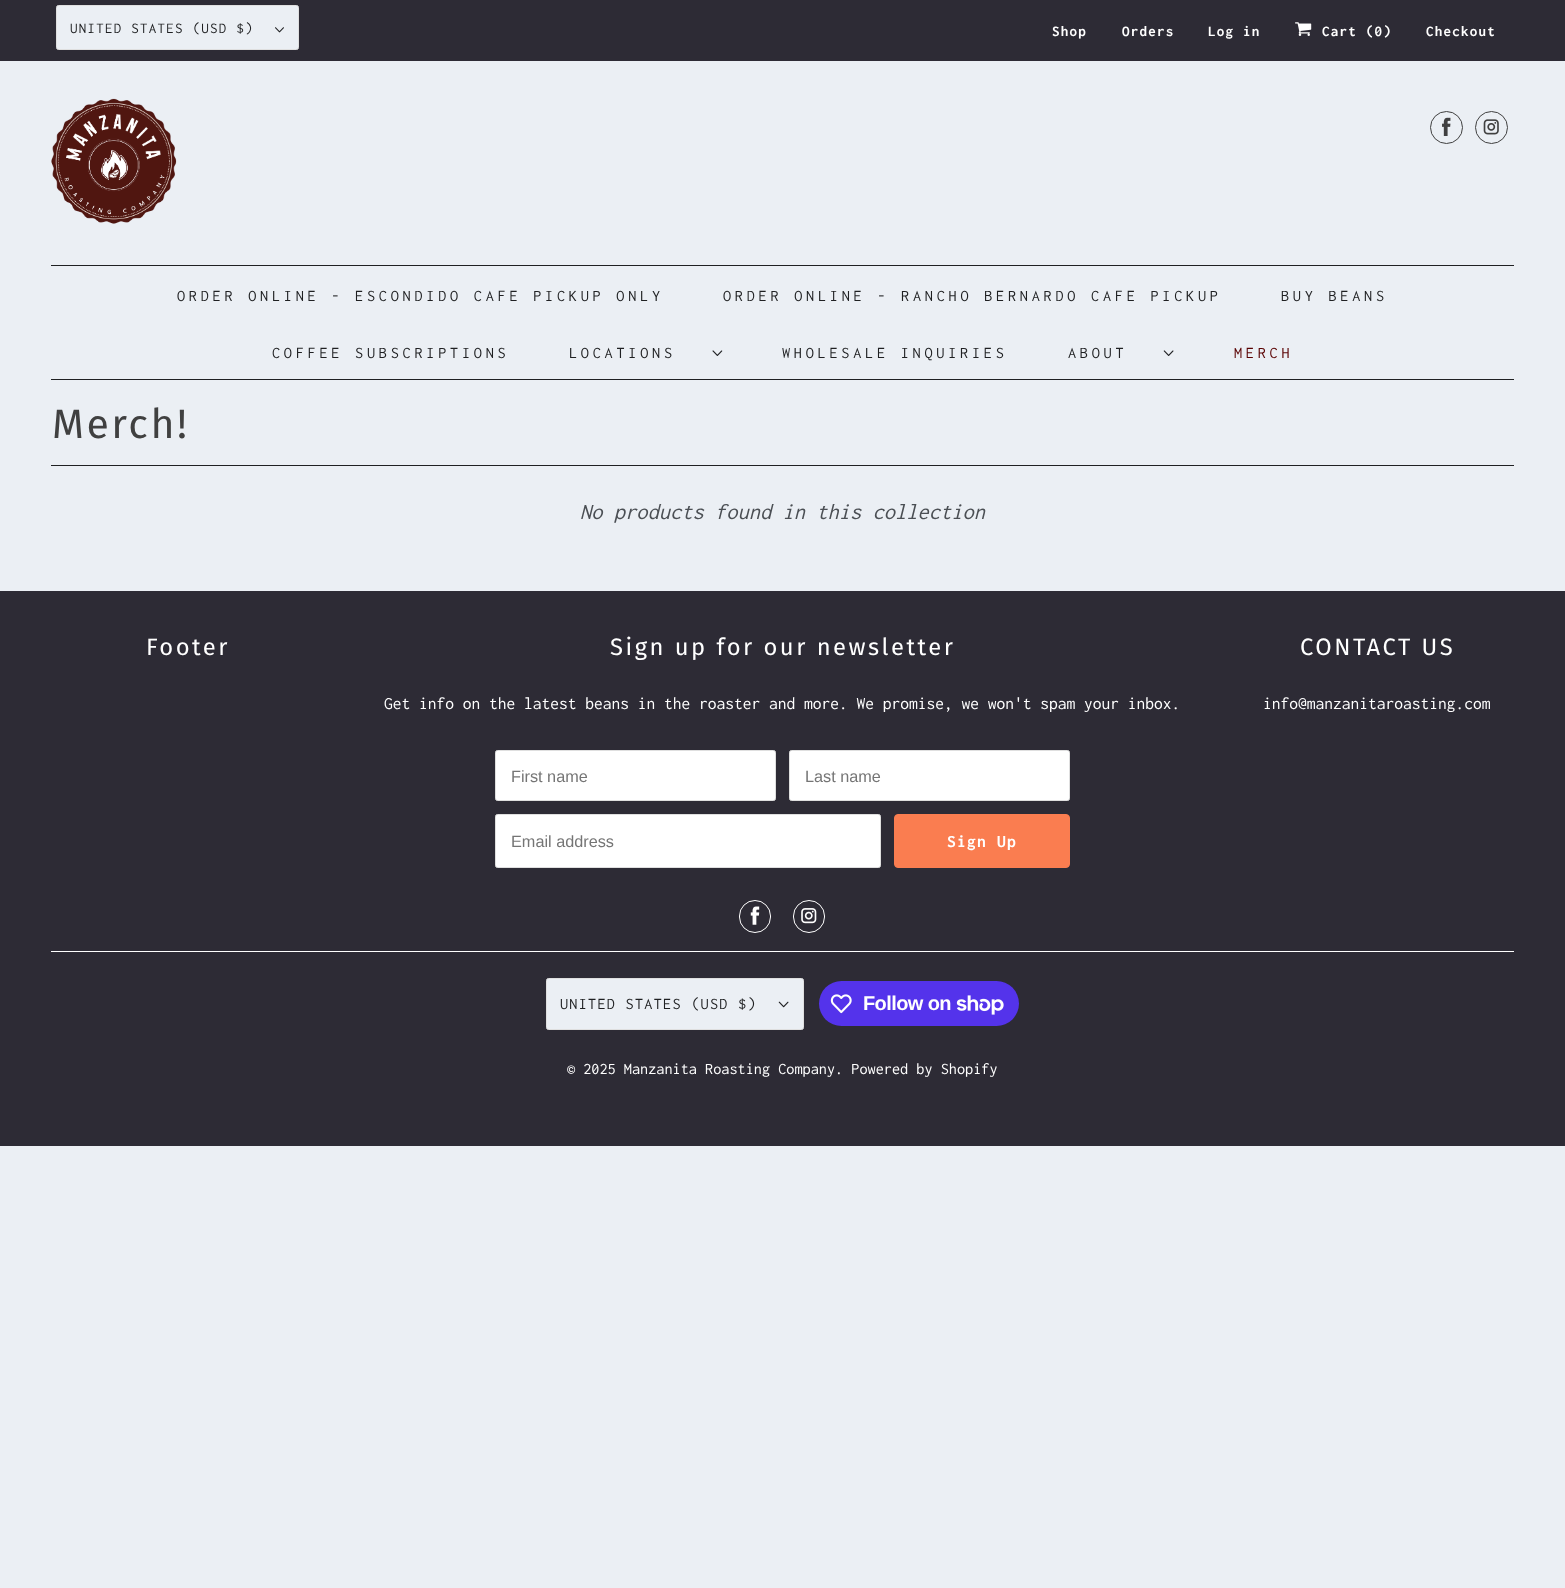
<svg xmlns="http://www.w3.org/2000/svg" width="1565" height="1588">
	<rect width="100%" height="100%" fill="#EBEFF4" />
	<rect x="0" y="0" width="1565" height="61" fill="#2D2B35" />
	<rect x="56.5" y="5.5" width="242" height="44" rx="2" fill="#EBEFF4" stroke="#DFDFDF" />
	<text x="70" y="33" font-family="Inconsolata" font-size="15" letter-spacing="1.25" fill="#1F2022">UNITED STATES (USD $)</text>
	<image x="275" y="27" width="9" height="6" href="assets/img1.png" />
	<g font-family="Inconsolata" font-size="15" font-weight="700" letter-spacing="1.25" fill="#FFFFFF">
		<text x="1052" y="36">Shop</text>
		<text x="1122" y="36">Orders</text>
		<text x="1208" y="36">Log in</text>
	</g>
	<image x="1295" y="22" width="17" height="14" href="assets/img2.png" />
	<g font-family="Inconsolata" font-size="15" font-weight="700" letter-spacing="1.25" fill="#FFFFFF">
		<text x="1322" y="36">Cart (0)</text>
		<text x="1426" y="36">Checkout</text>
	</g>
	<image x="51" y="98" width="126" height="126" href="assets/img3.png" />
	<circle cx="1446.5" cy="127.5" r="16" fill="none" stroke="#404040" />
	<image x="1442" y="117" width="9" height="19" href="assets/img4.png" />
	<circle cx="1491.5" cy="127.5" r="16" fill="none" stroke="#404040" />
	<image x="1483" y="119" width="16" height="16" href="assets/img5.png" />
	<rect x="51" y="265" width="1463" height="1" fill="#1F2022" />
	<rect x="51" y="379" width="1463" height="1" fill="#1F2022" />
	<g font-family="Inconsolata" font-size="16.25" letter-spacing="3.75" fill="#1F2022">
		<text x="177" y="301">ORDER ONLINE - ESCONDIDO CAFE PICKUP ONLY</text>
		<text x="723" y="301">ORDER ONLINE - RANCHO BERNARDO CAFE PICKUP</text>
		<text x="1281" y="301">BUY BEANS</text>
		<text x="272" y="358">COFFEE SUBSCRIPTIONS</text>
		<text x="569" y="358">LOCATIONS</text>
	</g>
	<image x="712" y="350" width="11" height="6" href="assets/img6.png" />
	<g font-family="Inconsolata" font-size="16.25" letter-spacing="3.75" fill="#1F2022">
		<text x="782" y="358">WHOLESALE INQUIRIES</text>
		<text x="1068" y="358">ABOUT</text>
	</g>
	<image x="1163" y="350" width="11" height="6" href="assets/img7.png" />
	<text x="1234" y="358" font-family="Inconsolata" font-size="16.25" letter-spacing="3.75" fill="#590101">MERCH</text>
	<rect x="51" y="465" width="1463" height="1" fill="#1F2022" />
	<text x="52" y="438" font-family="Fira Sans" font-size="41" letter-spacing="2.5" fill="#404040">Merch!</text>
	<text x="580" y="519" font-family="Inconsolata" font-size="22.5" font-style="italic" fill="#4B4F54">No products found in this collection</text>
	<rect x="0" y="591" width="1565" height="555" fill="#2D2B35" />
	<g font-family="Fira Sans" font-size="23.75" letter-spacing="2.5" fill="#FFFFFF">
		<text x="146" y="655">Footer</text>
		<text x="610" y="655">Sign up for our newsletter</text>
	</g>
	<text x="384" y="709" font-family="Inconsolata" font-size="17.5" fill="#FFFFFF">Get info on the latest beans in the roaster and more. We promise, we won't spam your inbox.</text>
	<rect x="495.5" y="750.5" width="280" height="50" rx="2" fill="#FFFFFF" stroke="#DFDFDF" />
	<text x="511" y="782" font-family="Liberation Sans" font-size="16.25" fill="#757575">First name</text>
	<rect x="789.5" y="750.5" width="280" height="50" rx="2" fill="#FFFFFF" stroke="#DFDFDF" />
	<text x="805" y="782" font-family="Liberation Sans" font-size="16.25" fill="#757575">Last name</text>
	<rect x="495.5" y="814.5" width="385" height="53" rx="2" fill="#FFFFFF" stroke="#DFDFDF" />
	<text x="511" y="847" font-family="Liberation Sans" font-size="16.25" fill="#757575">Email address</text>
	<rect x="894.5" y="814.5" width="175" height="53" rx="3.5" fill="#FA7D50" stroke="#FA7D50" />
	<text x="947" y="847" font-family="Inconsolata" font-size="17.5" font-weight="700" letter-spacing="1.25" fill="#FFFFFF">Sign Up</text>
	<rect x="739.5" y="900.5" width="31" height="32" rx="15.5" fill="none" stroke="#FFFFFF" />
	<image x="750" y="906" width="10" height="19" href="assets/img8.png" />
	<rect x="793.5" y="900.5" width="31" height="32" rx="15.5" fill="none" stroke="#FFFFFF" />
	<image x="801" y="908" width="16" height="16" href="assets/img9.png" />
	<text x="1300" y="655" font-family="Fira Sans" font-size="23.75" letter-spacing="2.5" fill="#FFFFFF">CONTACT US</text>
	<text x="1263" y="709" font-family="Inconsolata" font-size="17.5" fill="#FFFFFF">info@manzanitaroasting.com</text>
	<rect x="51" y="951" width="1463" height="1" fill="#FFFFFF" />
	<rect x="546.5" y="978.5" width="257" height="51" rx="2" fill="#EBEFF4" stroke="#DFDFDF" />
	<text x="560" y="1009" font-family="Inconsolata" font-size="16.25" letter-spacing="1.25" fill="#1F2022">UNITED STATES (USD $)</text>
	<image x="778" y="1001" width="11" height="7" href="assets/img10.png" />
	<rect x="819" y="981" width="200" height="45" rx="22.5" fill="#5433EB" />
	<image x="830" y="994" width="22" height="20" href="assets/img11.png" />
	<text x="863" y="1010" font-family="Liberation Sans" font-size="20" font-weight="700" letter-spacing="-0.6" fill="#FFFFFF">Follow on</text>
	<image x="956" y="995" width="48" height="20" href="assets/img12.png" />
	<text x="567" y="1074" font-family="Inconsolata" font-size="16.25" fill="#FFFFFF">© 2025 Manzanita Roasting Company. Powered by Shopify</text>
</svg>
